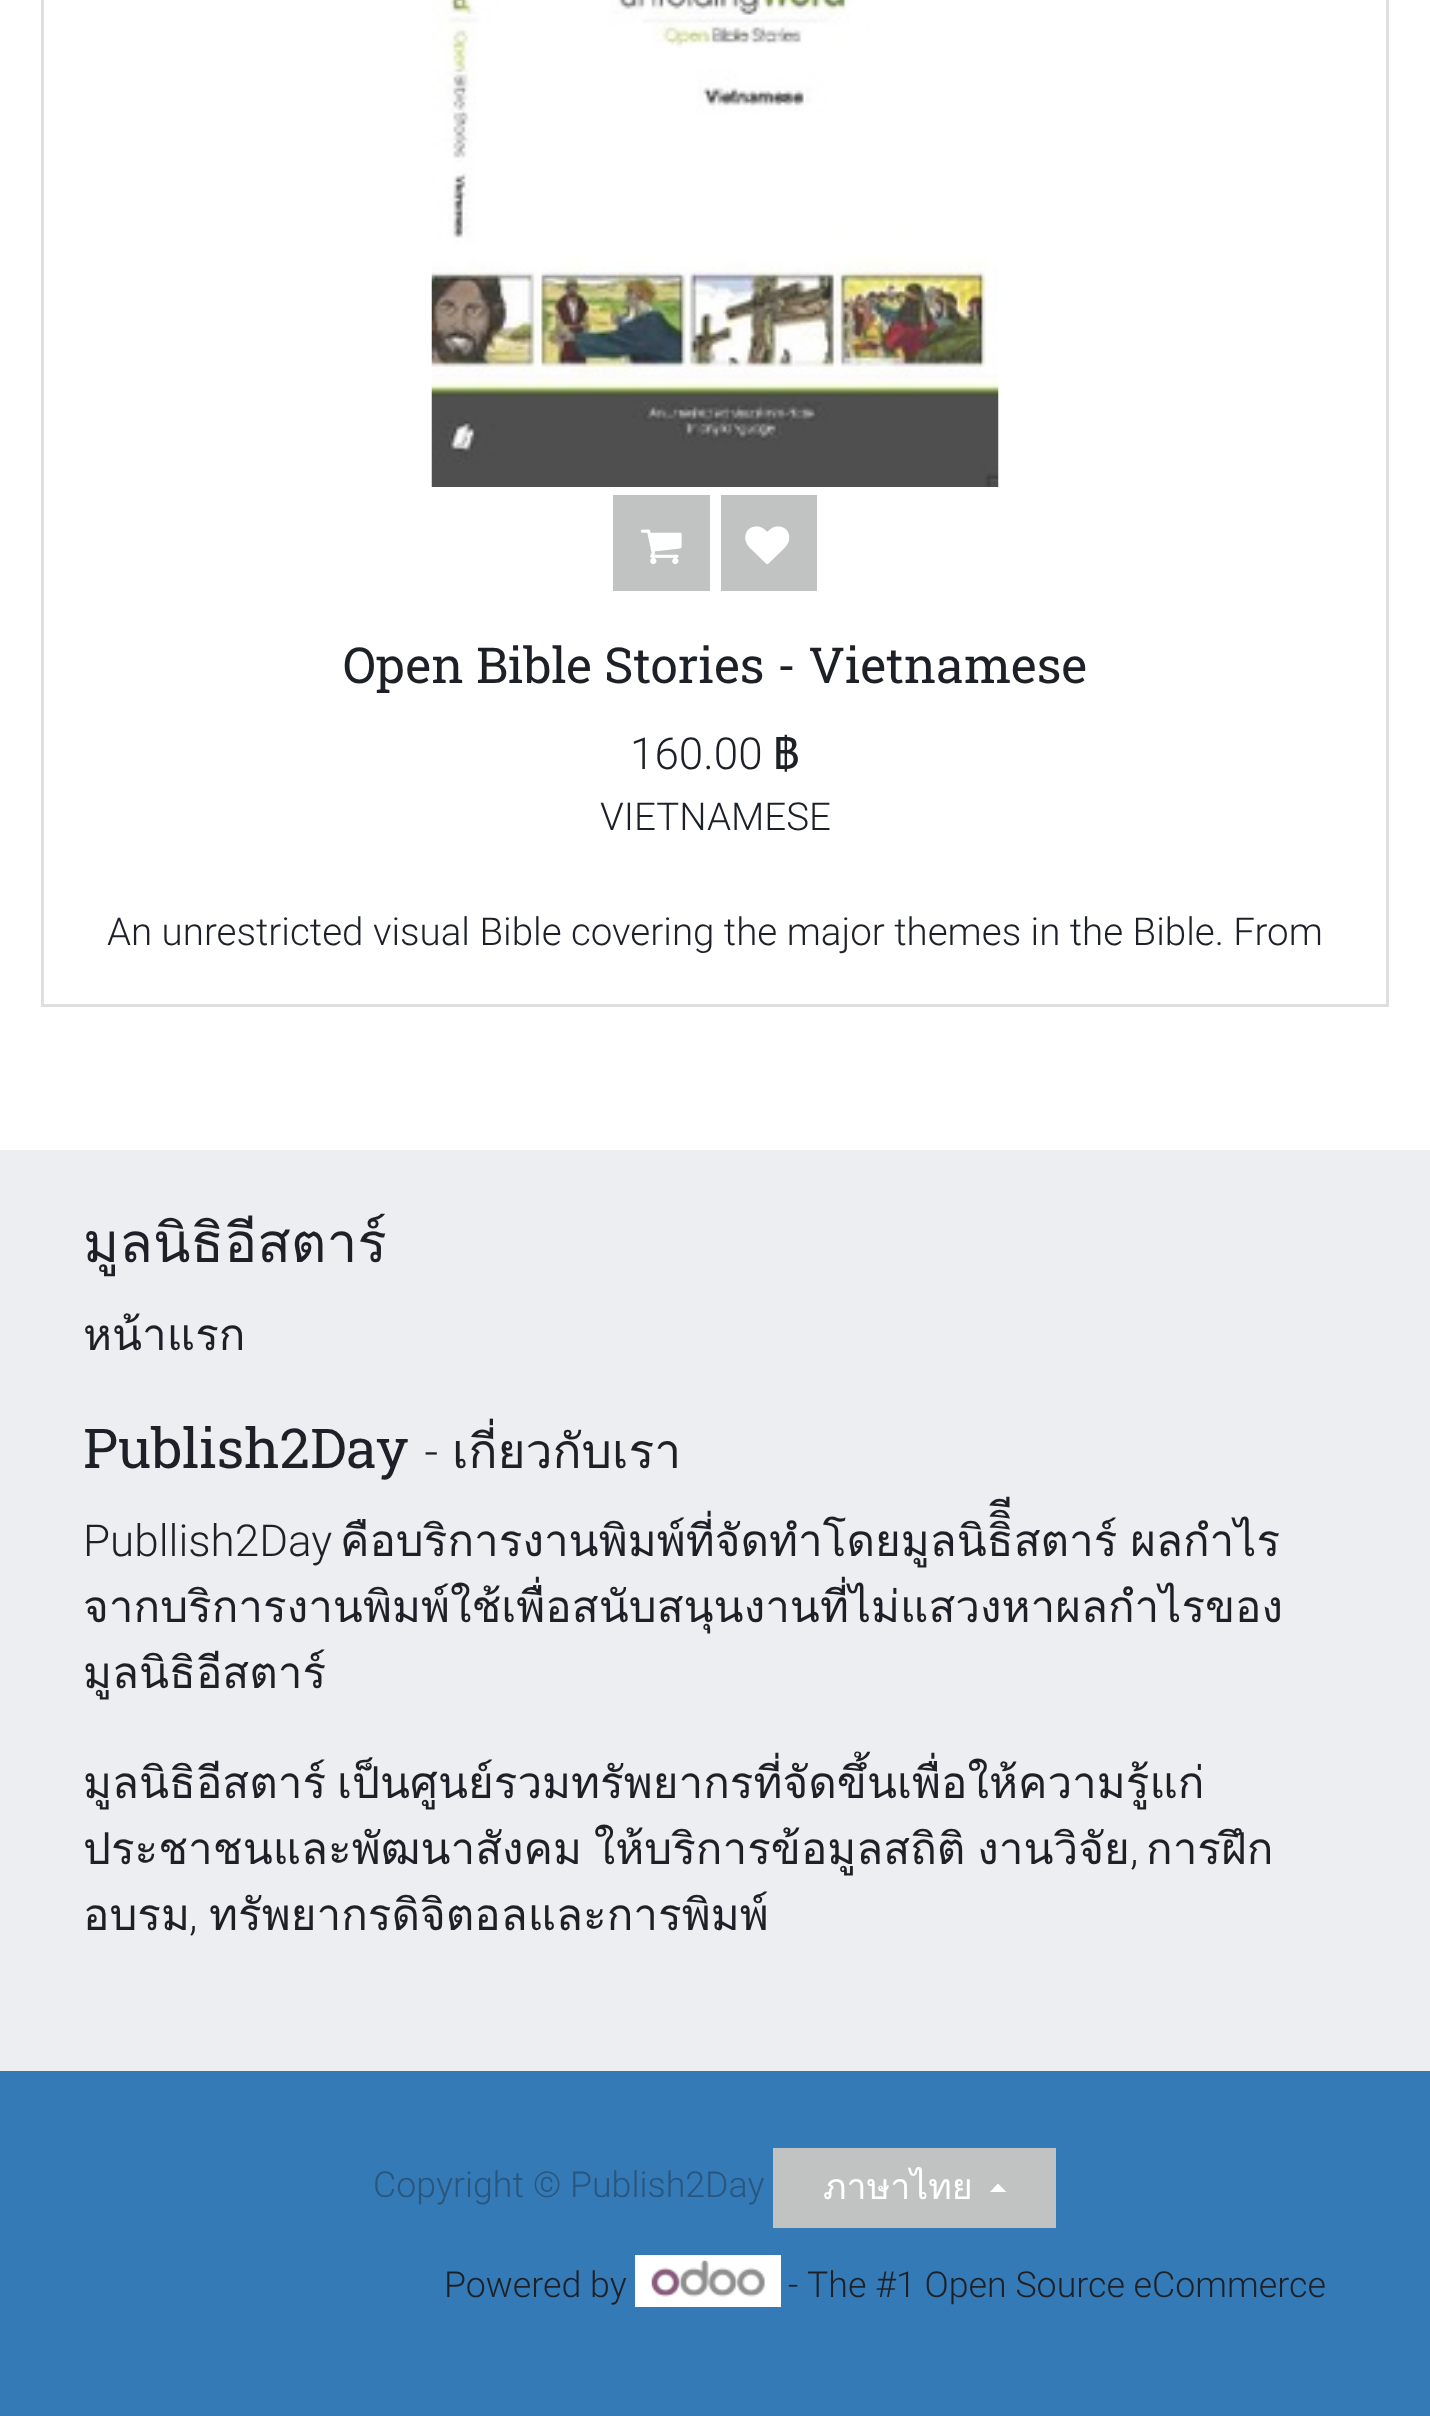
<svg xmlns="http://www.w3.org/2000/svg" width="1430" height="2416">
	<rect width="100%" height="100%" fill="#FFFFFF" />
	<rect x="42.5" y="-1.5" width="1345" height="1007" fill="none" stroke="#DFDFDF" stroke-width="3" />
	<image x="431" y="0" width="568" height="487" href="assets/img1.png" />
	<rect x="613" y="495" width="97" height="96" fill="#C1C2C2" />
	<image x="640" y="529" width="42" height="36" href="assets/img2.png" />
	<rect x="721" y="495" width="96" height="96" fill="#C1C2C2" />
	<image x="745" y="526" width="45" height="39" href="assets/img3.png" />
	<text x="343" y="683" font-family="Roboto Slab" font-size="49.5" fill="#1D2127">Open Bible Stories - Vietnamese</text>
	<text x="630" y="769" font-family="Roboto" font-size="44" font-weight="300" fill="#1D2127">160.00</text>
	<text x="773" y="769" font-family="Loma" font-size="44" fill="#1D2127">฿</text>
	<g font-family="Roboto" font-size="38.5" font-weight="300" fill="#1D2127">
		<text x="600" y="830">VIETNAMESE</text>
		<text x="107" y="945">An unrestricted visual Bible covering the major themes in the Bible. From</text>
	</g>
	<rect x="0" y="1150" width="1430" height="921" fill="#ECEEF1" />
	<text x="83" y="1262" font-family="Loma" font-size="55" fill="#1D2127">มูลนิธิอีสตาร์</text>
	<text x="83" y="1350" font-family="Loma" font-size="44" fill="#1D2127">หน้าแรก</text>
	<text x="83" y="1468" font-family="Roboto Slab" font-size="55" fill="#1D2127">Publish2Day</text>
	<text x="422" y="1468" font-family="Roboto Slab" font-size="48" font-weight="300" fill="#1D2127">-</text>
	<text x="452" y="1468" font-family="Loma" font-size="48" fill="#1D2127">เกี่ยวกับเรา</text>
	<text x="83" y="1556" font-family="Roboto" font-size="44" font-weight="300" fill="#1D2127">Publlish2Day</text>
	<g font-family="Loma" font-size="44" fill="#1D2127">
		<text x="340" y="1556" word-spacing="-2">คือบริการงานพิมพ์ที่จัดทำโดยมูลนิธิิีสตาร์ ผลกำไร</text>
		<text x="83" y="1622">จากบริการงานพิมพ์ใช้เพื่อสนับสนุนงานที่ไม่แสวงหาผลกำไรของ</text>
		<text x="83" y="1688">มูลนิธิอีสตาร์</text>
		<text x="83" y="1798" word-spacing="-4">มูลนิธิอีสตาร์ เป็นศูนย์รวมทรัพยากรที่จัดขึ้นเพื่อให้ความรู้แก่</text>
		<text x="83" y="1864" word-spacing="-3">ประชาชนและพัฒนาสังคม ให้บริการข้อมูลสถิติ งานวิจัย</text>
	</g>
	<text x="1130" y="1864" font-family="Roboto" font-size="44" font-weight="300" fill="#1D2127">,</text>
	<g font-family="Loma" font-size="44" fill="#1D2127">
		<text x="1146" y="1864">การฝึก</text>
		<text x="83" y="1930">อบรม</text>
	</g>
	<text x="189" y="1930" font-family="Roboto" font-size="44" font-weight="300" fill="#1D2127">,</text>
	<text x="209" y="1930" font-family="Loma" font-size="44" fill="#1D2127">ทรัพยากรดิจิตอลและการพิมพ์</text>
	<rect x="0" y="2071" width="1430" height="345" fill="#337AB7" />
	<text x="373" y="2197" font-family="Roboto" font-size="35.75" font-weight="300" fill="#2A567D">Copyright © Publish2Day</text>
	<rect x="773" y="2148" width="283" height="80" fill="#C1C2C2" />
	<text x="823" y="2199" font-family="Loma" font-size="35.75" fill="#FFFFFF">ภาษาไทย</text>
	<path d="M1006.5 2192H990L998 2183.5Z" fill="#FFFFFF" />
	<text x="444" y="2297" font-family="Roboto" font-size="35.75" font-weight="300" fill="#1D2127">Powered by</text>
	<rect x="635" y="2255" width="146" height="52" fill="#FFFFFF" />
	<image x="651" y="2260" width="114" height="37" href="assets/img4.png" />
	<g font-family="Roboto" font-size="35.75" font-weight="300" fill="#1D2127">
		<text x="788" y="2297">-</text>
		<text x="807" y="2297">The #1 Open Source eCommerce</text>
	</g>
</svg>
